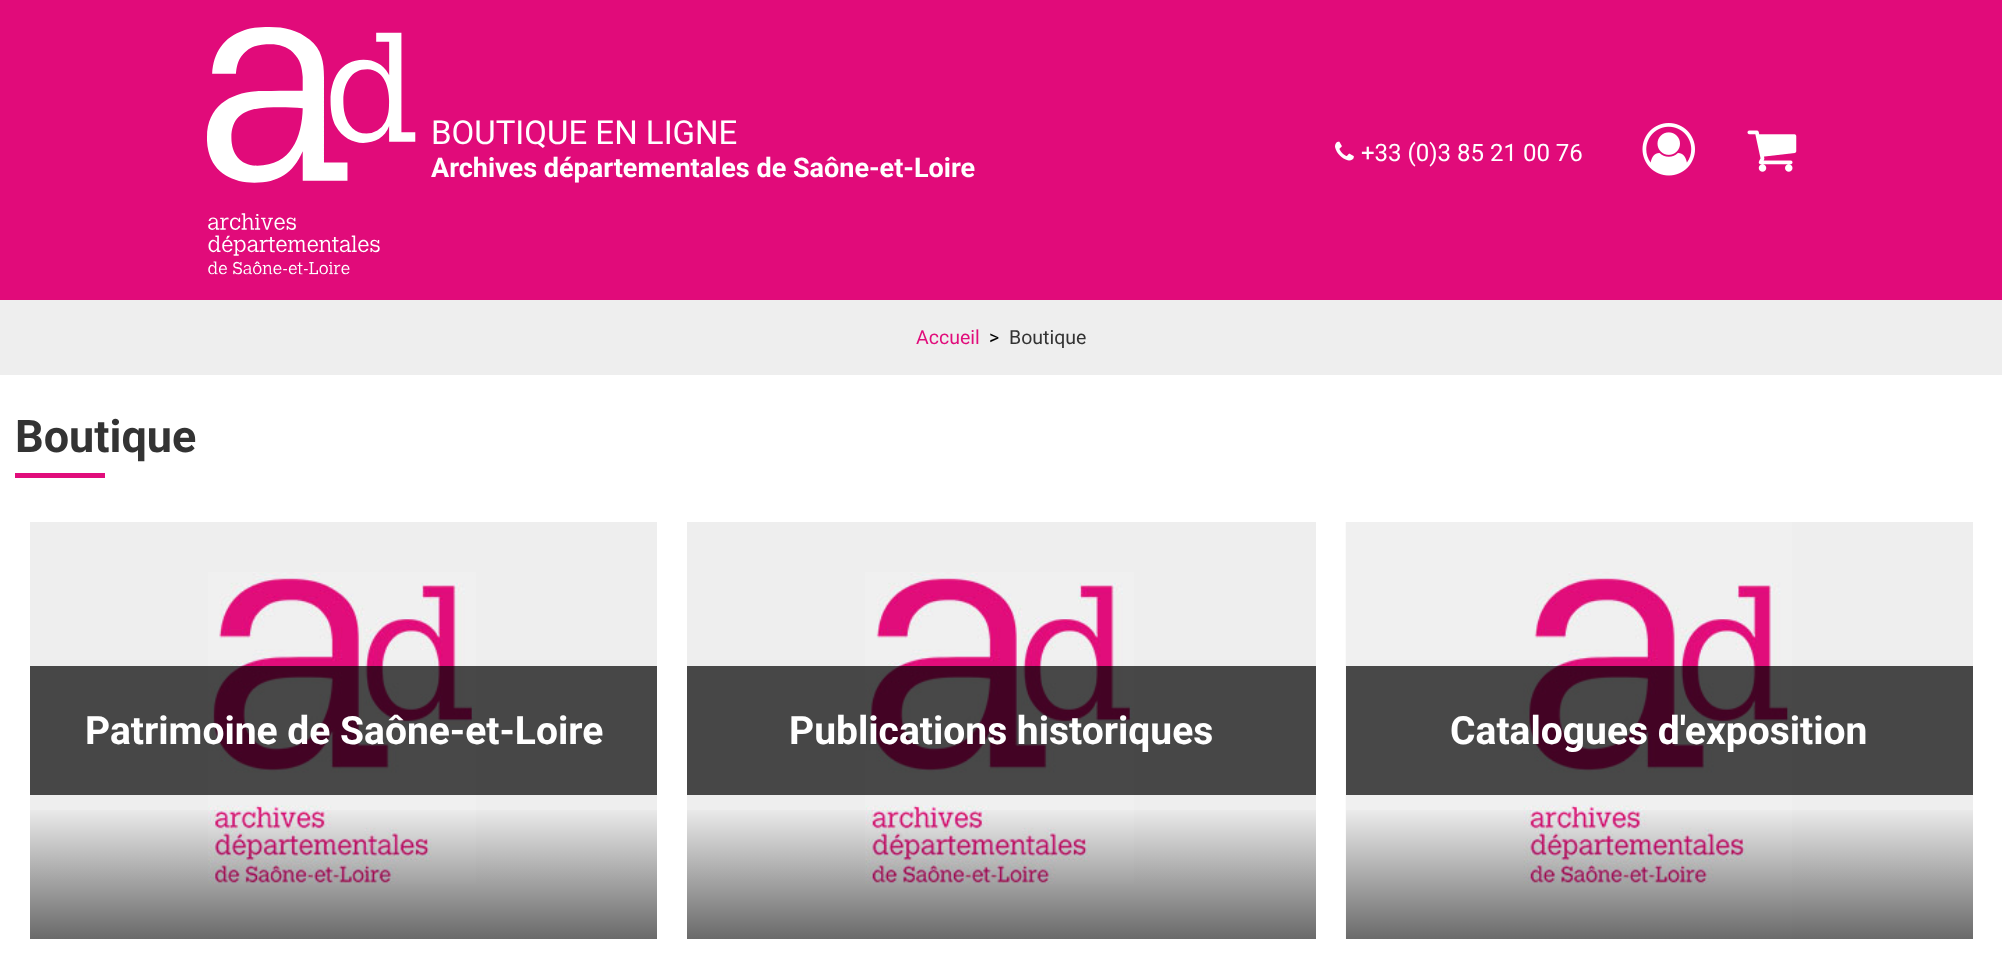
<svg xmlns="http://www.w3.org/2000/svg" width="2002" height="968">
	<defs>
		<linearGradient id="g1" gradientUnits="userSpaceOnUse" x1="344" y1="805" x2="344" y2="940"><stop offset="0" stop-color="#000000" stop-opacity="0" /><stop offset="1" stop-color="#000000" stop-opacity="0.56" /></linearGradient>
		<linearGradient id="g2" gradientUnits="userSpaceOnUse" x1="1001" y1="805" x2="1001" y2="940"><stop offset="0" stop-color="#000000" stop-opacity="0" /><stop offset="1" stop-color="#000000" stop-opacity="0.56" /></linearGradient>
		<linearGradient id="g3" gradientUnits="userSpaceOnUse" x1="1659" y1="805" x2="1659" y2="940"><stop offset="0" stop-color="#000000" stop-opacity="0" /><stop offset="1" stop-color="#000000" stop-opacity="0.56" /></linearGradient>
	</defs>
	<rect width="100%" height="100%" fill="#FFFFFF" />
	<rect x="0" y="0" width="2002" height="300" fill="#E10B7A" />
	<image x="207" y="27" width="209" height="248" href="assets/img1.png" />
	<text x="431" y="144" font-family="Roboto" font-size="33" fill="#FFFFFF">BOUTIQUE EN LIGNE</text>
	<text x="431" y="177" font-family="Roboto" font-size="27" font-weight="700" fill="#FFFFFF">Archives départementales de Saône-et-Loire</text>
	<image x="1335" y="141" width="19" height="20" href="assets/img2.png" />
	<text x="1361" y="161" font-family="Roboto" font-size="24" fill="#FFFFFF">+33 (0)3 85 21 00 76</text>
	<image x="1642" y="123" width="53" height="53" href="assets/img3.png" />
	<image x="1747" y="130" width="50" height="42" href="assets/img4.png" />
	<rect x="0" y="300" width="2002" height="75" fill="#EEEEEE" />
	<text x="916" y="344" font-family="Roboto" font-size="19.5" fill="#E10D7B">Accueil</text>
	<text x="989" y="344" font-family="Roboto" font-size="19.5" fill="#000000">&gt;</text>
	<text x="1009" y="344" font-family="Roboto" font-size="19.5" fill="#333333">Boutique</text>
	<text x="15" y="452" font-family="Roboto" font-size="45" font-weight="700" fill="#333333">Boutique</text>
	<rect x="15" y="473" width="90" height="5" fill="#E10D7B" />
	<rect x="30" y="522" width="627" height="417" fill="#EEEEEE" />
	<image x="208" y="572" width="268" height="312" href="assets/img5.png" />
	<rect x="30" y="810" width="627" height="129" fill="url(#g1)" />
	<rect x="30" y="666" width="627" height="129" fill="#000000" fill-opacity="0.7" />
	<text x="85" y="744" font-family="Roboto" font-size="39" font-weight="700" fill="#FFFFFF">Patrimoine de Saône-et-Loire</text>
	<rect x="687" y="522" width="629" height="417" fill="#EEEEEE" />
	<image x="865" y="572" width="269" height="312" href="assets/img6.png" />
	<rect x="687" y="810" width="629" height="129" fill="url(#g2)" />
	<rect x="687" y="666" width="629" height="129" fill="#000000" fill-opacity="0.7" />
	<text x="789" y="744" font-family="Roboto" font-size="39" font-weight="700" fill="#FFFFFF">Publications historiques</text>
	<rect x="1792" y="522" width="181" height="417" fill="#EEEEEE" />
	<image x="1345" y="522" width="447" height="417" href="assets/img7.png" />
	<rect x="1346" y="810" width="627" height="129" fill="url(#g3)" />
	<rect x="1346" y="666" width="627" height="129" fill="#000000" fill-opacity="0.7" />
	<text x="1450" y="744" font-family="Roboto" font-size="39" font-weight="700" fill="#FFFFFF">Catalogues d'exposition</text>
</svg>
